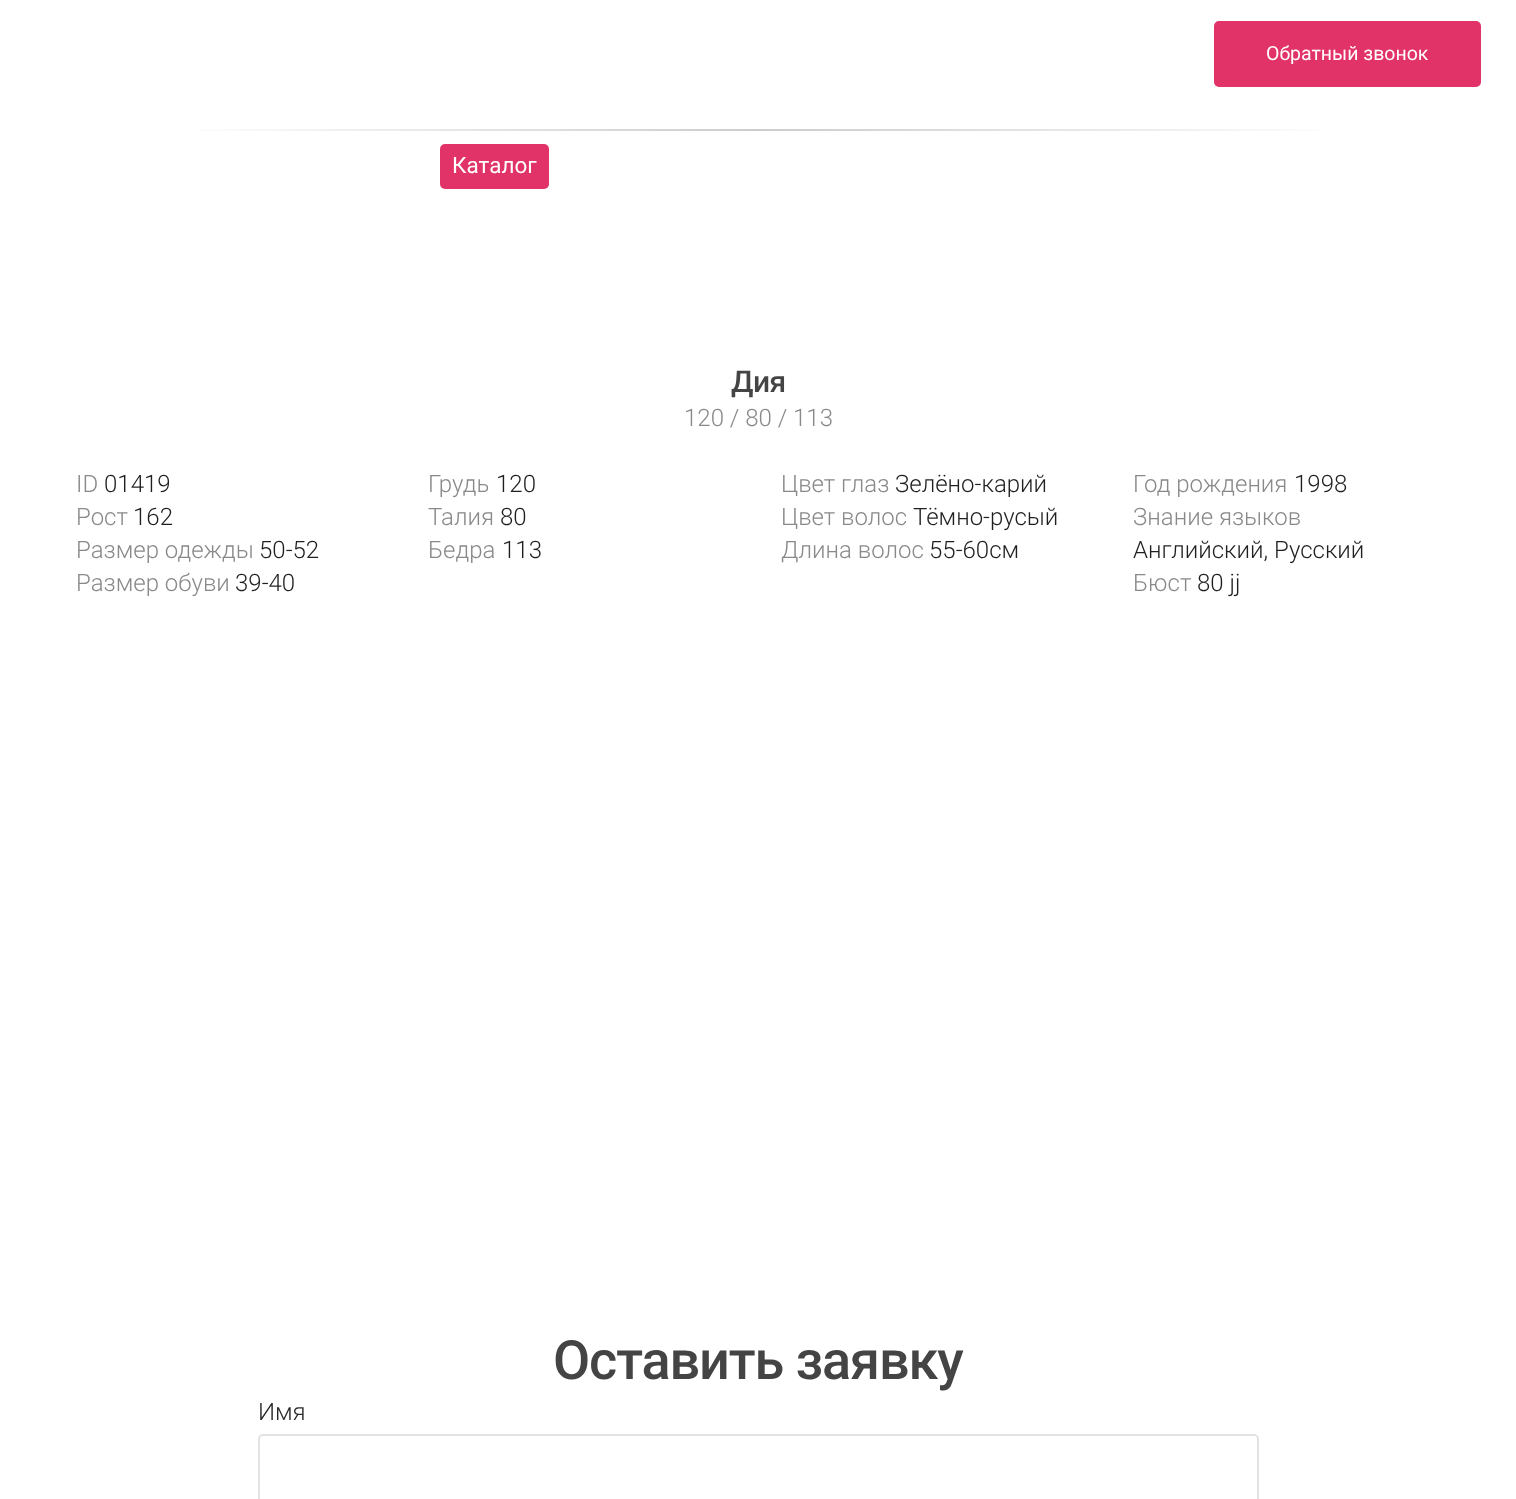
<svg xmlns="http://www.w3.org/2000/svg" width="1516" height="1499">
	<defs>
		<linearGradient id="g1" gradientUnits="userSpaceOnUse" x1="170" y1="130" x2="1347" y2="130"><stop offset="0" stop-color="#FFFFFF" /><stop offset="0.5" stop-color="#CCCCCC" /><stop offset="1" stop-color="#FFFFFF" /></linearGradient>
	</defs>
	<rect width="100%" height="100%" fill="#FFFFFF" />
	<rect x="1215.5" y="22.5" width="264" height="63" rx="3.5" fill="#E13368" stroke="#E13368" stroke-width="3" />
	<text x="1266" y="60" font-family="Roboto" font-size="19.5" fill="#FFFFFF">Обратный звонок</text>
	<rect x="199" y="129" width="1119" height="2" fill="url(#g1)" />
	<rect x="440" y="144" width="109" height="45" rx="5" fill="#E13368" />
	<text x="452" y="173" font-family="Roboto" font-size="22.5" fill="#FFFFFF">Каталог</text>
	<text x="731" y="392" font-family="Roboto" font-size="30" font-weight="500" letter-spacing="-0.5" fill="#444444">Дия</text>
	<g font-family="Roboto" font-size="24" font-weight="300" fill="#898989">
		<text x="684" y="426">120 / 80 / 113</text>
		<text x="76" y="492">ID</text>
	</g>
	<text x="104" y="492" font-family="Roboto" font-size="24" font-weight="300" fill="#1F1F1F">01419</text>
	<text x="76" y="525" font-family="Roboto" font-size="24" font-weight="300" fill="#898989">Рост</text>
	<text x="133" y="525" font-family="Roboto" font-size="24" font-weight="300" fill="#1F1F1F">162</text>
	<text x="76" y="558" font-family="Roboto" font-size="24" font-weight="300" fill="#898989">Размер одежды</text>
	<text x="259" y="558" font-family="Roboto" font-size="24" font-weight="300" fill="#1F1F1F">50-52</text>
	<text x="76" y="591" font-family="Roboto" font-size="24" font-weight="300" fill="#898989">Размер обуви</text>
	<text x="235" y="591" font-family="Roboto" font-size="24" font-weight="300" fill="#1F1F1F">39-40</text>
	<text x="428" y="492" font-family="Roboto" font-size="24" font-weight="300" fill="#898989">Грудь</text>
	<text x="496" y="492" font-family="Roboto" font-size="24" font-weight="300" fill="#1F1F1F">120</text>
	<text x="428" y="525" font-family="Roboto" font-size="24" font-weight="300" fill="#898989">Талия</text>
	<text x="500" y="525" font-family="Roboto" font-size="24" font-weight="300" fill="#1F1F1F">80</text>
	<text x="428" y="558" font-family="Roboto" font-size="24" font-weight="300" fill="#898989">Бедра</text>
	<text x="502" y="558" font-family="Roboto" font-size="24" font-weight="300" fill="#1F1F1F">113</text>
	<text x="781" y="492" font-family="Roboto" font-size="24" font-weight="300" fill="#898989">Цвет глаз</text>
	<text x="895" y="492" font-family="Roboto" font-size="24" font-weight="300" fill="#1F1F1F">Зелёно-карий</text>
	<text x="781" y="525" font-family="Roboto" font-size="24" font-weight="300" fill="#898989">Цвет волос</text>
	<text x="913" y="525" font-family="Roboto" font-size="24" font-weight="300" fill="#1F1F1F">Тёмно-русый</text>
	<text x="781" y="558" font-family="Roboto" font-size="24" font-weight="300" fill="#898989">Длина волос</text>
	<text x="929" y="558" font-family="Roboto" font-size="24" font-weight="300" fill="#1F1F1F">55-60см</text>
	<text x="1133" y="492" font-family="Roboto" font-size="24" font-weight="300" fill="#898989">Год рождения</text>
	<text x="1294" y="492" font-family="Roboto" font-size="24" font-weight="300" fill="#1F1F1F">1998</text>
	<text x="1133" y="525" font-family="Roboto" font-size="24" font-weight="300" fill="#898989">Знание языков</text>
	<text x="1133" y="558" font-family="Roboto" font-size="24" font-weight="300" fill="#1F1F1F">Английский, Русский</text>
	<text x="1133" y="591" font-family="Roboto" font-size="24" font-weight="300" fill="#898989">Бюст</text>
	<text x="1197" y="591" font-family="Roboto" font-size="24" font-weight="300" fill="#1F1F1F">80 jj</text>
	<text x="553" y="1379" font-family="Roboto" font-size="54" font-weight="500" letter-spacing="-1.1" fill="#444444">Оставить заявку</text>
	<text x="258" y="1420" font-family="Roboto" font-size="24" font-weight="300" fill="#282828">Имя</text>
	<rect x="259" y="1435" width="999" height="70" rx="4" fill="none" stroke="#E3E3E3" stroke-width="2" />
</svg>
